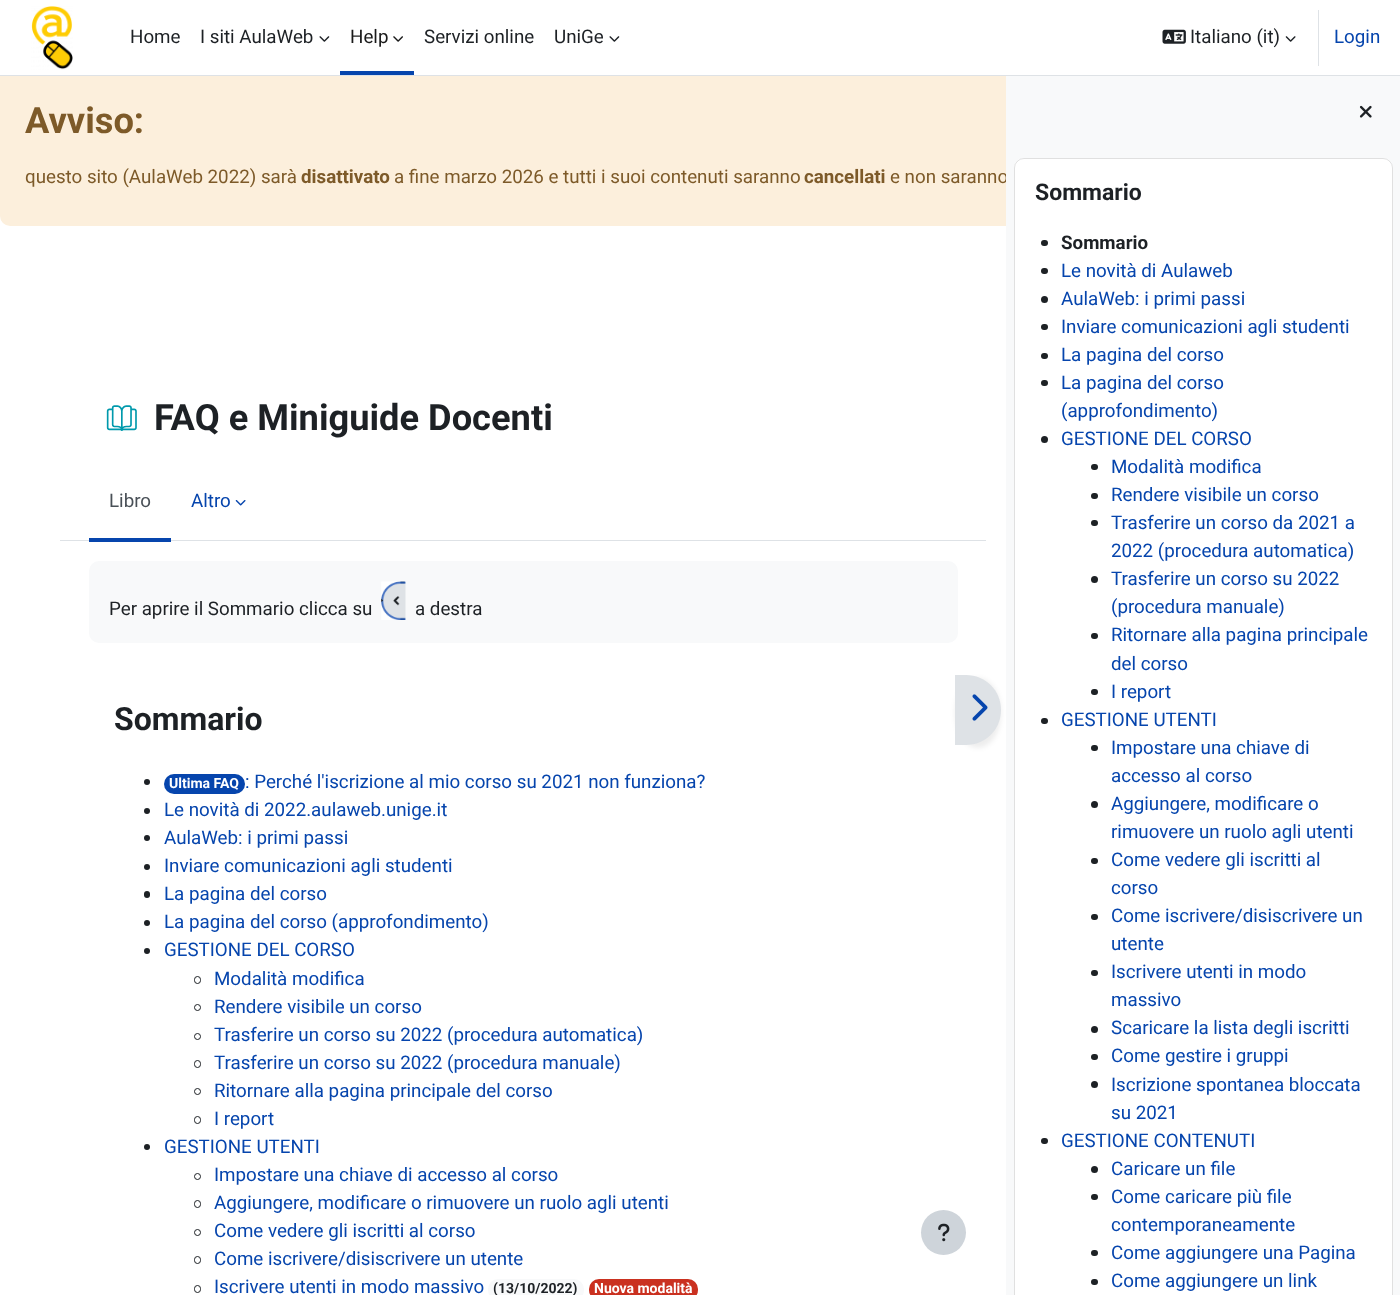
<svg xmlns="http://www.w3.org/2000/svg" width="1400" height="1295">
	<rect width="100%" height="100%" fill="#FFFFFF" />
	<rect x="0" y="0" width="1400" height="226" rx="10" fill="#FCEFDC" />
	<rect x="0" y="0" width="1400" height="75" fill="#FFFFFF" />
	<rect x="0" y="75" width="1400" height="1" fill="#DEE2E6" />
	<image x="31" y="6" width="42" height="64" href="assets/img1.png" />
	<g font-family="Roboto" font-size="18.75" fill="#1D2125">
		<text x="130" y="43">Home</text>
		<text x="200" y="43">I siti AulaWeb</text>
	</g>
	<image x="319" y="36" width="11" height="6" href="assets/img2.png" />
	<rect x="340" y="71" width="74" height="4" fill="#0645AD" />
	<text x="350" y="43" font-family="Roboto" font-size="18.75" fill="#1A1A1A">Help</text>
	<image x="393" y="36" width="10" height="6" href="assets/img3.png" />
	<g font-family="Roboto" font-size="18.75" fill="#1D2125">
		<text x="424" y="43">Servizi online</text>
		<text x="554" y="43">UniGe</text>
	</g>
	<image x="609" y="36" width="11" height="6" href="assets/img2.png" />
	<image x="1162" y="29" width="24" height="15" href="assets/img4.png" />
	<text x="1190" y="43" font-family="Roboto" font-size="18.75" fill="#1D2125">Italiano (it)</text>
	<image x="1285" y="36" width="11" height="6" href="assets/img5.png" />
	<rect x="1318" y="10" width="1" height="56" fill="#DEE2E6" />
	<text x="1334" y="43" font-family="Roboto" font-size="18.75" fill="#0645AD">Login</text>
	<text x="25" y="133" font-family="Roboto" font-size="36.25" font-weight="700" fill="#7D5A29">Avviso:</text>
	<text x="25" y="183" font-family="Roboto" font-size="18.75" fill="#7D5A29">questo sito (AulaWeb 2022) sarà</text>
	<text x="301" y="183" font-family="Roboto" font-size="18.75" font-weight="700" fill="#7D5A29">disattivato</text>
	<text x="394" y="183" font-family="Roboto" font-size="18.75" fill="#7D5A29">a fine marzo 2026 e tutti i suoi contenuti saranno</text>
	<text x="804" y="183" font-family="Roboto" font-size="18.75" font-weight="700" fill="#7D5A29">cancellati</text>
	<text x="890" y="183" font-family="Roboto" font-size="18.75" fill="#7D5A29">e non saranno</text>
	<image x="106" y="405" width="31" height="26" href="assets/img6.png" />
	<text x="154" y="430" font-family="Roboto" font-size="36.25" font-weight="700" fill="#1D2125">FAQ e Miniguide Docenti</text>
	<rect x="60" y="540" width="926" height="1" fill="#DEE2E6" />
	<rect x="89" y="538" width="82" height="4" fill="#0645AD" />
	<text x="109" y="507" font-family="Roboto" font-size="18.75" fill="#495057">Libro</text>
	<text x="191" y="507" font-family="Roboto" font-size="18.75" fill="#0645AD">Altro</text>
	<image x="235" y="500" width="11" height="6" href="assets/img7.png" />
	<rect x="89" y="561" width="869" height="82" rx="10" fill="#F8F9FA" />
	<text x="109" y="615" font-family="Roboto" font-size="18.75" fill="#1D2125">Per aprire il Sommario clicca su</text>
	<image x="381" y="581" width="25" height="39" href="assets/img8.png" />
	<text x="415" y="615" font-family="Roboto" font-size="18.75" fill="#1D2125">a destra</text>
	<text x="114" y="730" font-family="Roboto" font-size="32" font-weight="700" fill="#1D2125">Sommario</text>
	<circle cx="147" cy="782" r="3" fill="#1D2125" />
	<rect x="164" y="774" width="81" height="20" rx="10" fill="#0645AD" />
	<text x="169" y="788" font-family="Roboto" font-size="14" font-weight="700" fill="#FFFFFF">Ultima FAQ</text>
	<text x="245" y="788" font-family="Roboto" font-size="18.75" fill="#0645AD">: Perché l'iscrizione al mio corso su 2021 non funziona?</text>
	<circle cx="147" cy="811" r="3" fill="#1D2125" />
	<text x="164" y="816" font-family="Roboto" font-size="18.75" fill="#0645AD">Le novità di 2022.aulaweb.unige.it</text>
	<circle cx="147" cy="838" r="3" fill="#1D2125" />
	<text x="164" y="844" font-family="Roboto" font-size="18.75" fill="#0645AD">AulaWeb: i primi passi</text>
	<circle cx="147" cy="867" r="3" fill="#1D2125" />
	<text x="164" y="872" font-family="Roboto" font-size="18.75" fill="#0645AD">Inviare comunicazioni agli studenti</text>
	<rect x="144" y="891" width="6" height="7" rx="3" fill="#1D2125" />
	<text x="164" y="900" font-family="Roboto" font-size="18.75" fill="#0645AD">La pagina del corso</text>
	<circle cx="147" cy="923" r="3" fill="#1D2125" />
	<text x="164" y="928" font-family="Roboto" font-size="18.75" fill="#0645AD">La pagina del corso (approfondimento)</text>
	<circle cx="147" cy="951" r="3" fill="#1D2125" />
	<text x="164" y="956" font-family="Roboto" font-size="18.75" fill="#0645AD">GESTIONE DEL CORSO</text>
	<rect x="194.5" y="976.5" width="6" height="7" rx="3" fill="none" stroke="#1D2125" />
	<text x="214" y="985" font-family="Roboto" font-size="18.75" fill="#0645AD">Modalità modifica</text>
	<circle cx="197.5" cy="1007.5" r="3" fill="none" stroke="#1D2125" />
	<text x="214" y="1013" font-family="Roboto" font-size="18.75" fill="#0645AD">Rendere visibile un corso</text>
	<circle cx="197.5" cy="1036.5" r="3" fill="none" stroke="#1D2125" />
	<text x="214" y="1041" font-family="Roboto" font-size="18.75" fill="#0645AD">Trasferire un corso su 2022 (procedura automatica)</text>
	<rect x="194.5" y="1060.5" width="6" height="7" rx="3" fill="none" stroke="#1D2125" />
	<text x="214" y="1069" font-family="Roboto" font-size="18.75" fill="#0645AD">Trasferire un corso su 2022 (procedura manuale)</text>
	<circle cx="197.5" cy="1091.5" r="3" fill="none" stroke="#1D2125" />
	<text x="214" y="1097" font-family="Roboto" font-size="18.75" fill="#0645AD">Ritornare alla pagina principale del corso</text>
	<rect x="194.5" y="1116.5" width="6" height="7" rx="3" fill="none" stroke="#1D2125" />
	<text x="214" y="1125" font-family="Roboto" font-size="18.75" fill="#0645AD">I report</text>
	<circle cx="147" cy="1147" r="3" fill="#1D2125" />
	<text x="164" y="1153" font-family="Roboto" font-size="18.75" fill="#0645AD">GESTIONE UTENTI</text>
	<circle cx="197.5" cy="1176.5" r="3" fill="none" stroke="#1D2125" />
	<text x="214" y="1181" font-family="Roboto" font-size="18.75" fill="#0645AD">Impostare una chiave di accesso al corso</text>
	<rect x="194.5" y="1200.5" width="6" height="7" rx="3" fill="none" stroke="#1D2125" />
	<text x="214" y="1209" font-family="Roboto" font-size="18.75" fill="#0645AD">Aggiungere, modificare o rimuovere un ruolo agli utenti</text>
	<circle cx="197.5" cy="1232.5" r="3" fill="none" stroke="#1D2125" />
	<text x="214" y="1237" font-family="Roboto" font-size="18.75" fill="#0645AD">Come vedere gli iscritti al corso</text>
	<rect x="194.5" y="1256.5" width="6" height="7" rx="3" fill="none" stroke="#1D2125" />
	<text x="214" y="1265" font-family="Roboto" font-size="18.75" fill="#0645AD">Come iscrivere/disiscrivere un utente</text>
	<rect x="194.5" y="1285.5" width="6" height="7" rx="3" fill="none" stroke="#1D2125" />
	<text x="214" y="1293" font-family="Roboto" font-size="18.75" fill="#0645AD">Iscrivere utenti in modo massivo</text>
	<rect x="488" y="1279" width="96" height="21" rx="10" fill="#F8F9FA" />
	<text x="493" y="1293" font-family="Roboto" font-size="14" font-weight="700" fill="#1D2125">(13/10/2022)</text>
	<rect x="589" y="1279" width="109" height="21" rx="10" fill="#CA3120" />
	<text x="594" y="1293" font-family="Roboto" font-size="14" font-weight="700" fill="#FFFFFF">Nuova modalità</text>
	<rect x="955" y="678" width="46" height="70" rx="35" fill="#000000" fill-opacity="0.07" filter="blur(2.5px)" />
	<path d="M955 675H966C985.5 675 1001 690.5 1001 710C1001 729.5 985.5 745 966 745H955Z" fill="#DEE2E6" />
	<image x="972" y="694" width="16" height="27" href="assets/img9.png" />
	<circle cx="943.5" cy="1232.5" r="22.5" fill="#CED4DA" />
	<image x="938" y="1223" width="12" height="19" href="assets/img10.png" />
	<rect x="1006" y="76" width="394" height="1219" fill="#F8F9FA" />
	<image x="1359" y="105" width="13" height="13" href="assets/img11.png" />
	<path d="M1024 158H1383C1388.5 158 1393 162.5 1393 168V1295H1014V168C1014 162.5 1018.5 158 1024 158Z" fill="#FFFFFF" />
	<rect x="1014.5" y="158.5" width="378" height="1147" rx="9.5" fill="none" stroke="#000000" stroke-opacity="0.12" />
	<text x="1035" y="200" font-family="Roboto" font-size="23" font-weight="700" fill="#1D2125">Sommario</text>
	<rect x="1041" y="240" width="7" height="6" rx="3" fill="#1D2125" />
	<text x="1061" y="249" font-family="Roboto" font-size="18.75" font-weight="700" fill="#1D2125">Sommario</text>
	<rect x="1041" y="268" width="7" height="6" rx="3" fill="#1D2125" />
	<text x="1061" y="277" font-family="Roboto" font-size="18.75" fill="#0645AD">Le novità di Aulaweb</text>
	<circle cx="1044.5" cy="299.5" r="3.5" fill="#1D2125" />
	<text x="1061" y="305" font-family="Roboto" font-size="18.75" fill="#0645AD">AulaWeb: i primi passi</text>
	<rect x="1041" y="324" width="7" height="6" rx="3" fill="#1D2125" />
	<text x="1061" y="333" font-family="Roboto" font-size="18.75" fill="#0645AD">Inviare comunicazioni agli studenti</text>
	<rect x="1041" y="353" width="7" height="6" rx="3" fill="#1D2125" />
	<text x="1061" y="361" font-family="Roboto" font-size="18.75" fill="#0645AD">La pagina del corso</text>
	<rect x="1041" y="380" width="7" height="6" rx="3" fill="#1D2125" />
	<g font-family="Roboto" font-size="18.75" fill="#0645AD">
		<text x="1061" y="389">La pagina del corso</text>
		<text x="1061" y="417">(approfondimento)</text>
	</g>
	<circle cx="1044.5" cy="439.5" r="3.5" fill="#1D2125" />
	<text x="1061" y="445" font-family="Roboto" font-size="18.75" fill="#0645AD">GESTIONE DEL CORSO</text>
	<rect x="1091" y="464" width="7" height="6" rx="3" fill="#1D2125" />
	<text x="1111" y="473" font-family="Roboto" font-size="18.75" fill="#0645AD">Modalità modifica</text>
	<rect x="1091" y="493" width="7" height="6" rx="3" fill="#1D2125" />
	<text x="1111" y="501" font-family="Roboto" font-size="18.75" fill="#0645AD">Rendere visibile un corso</text>
	<rect x="1091" y="520" width="7" height="6" rx="3" fill="#1D2125" />
	<g font-family="Roboto" font-size="18.75" fill="#0645AD">
		<text x="1111" y="529">Trasferire un corso da 2021 a</text>
		<text x="1111" y="557">2022 (procedura automatica)</text>
	</g>
	<circle cx="1094.5" cy="579.5" r="3.5" fill="#1D2125" />
	<g font-family="Roboto" font-size="18.75" fill="#0645AD">
		<text x="1111" y="585">Trasferire un corso su 2022</text>
		<text x="1111" y="613">(procedura manuale)</text>
	</g>
	<rect x="1091" y="633" width="7" height="6" rx="3" fill="#1D2125" />
	<g font-family="Roboto" font-size="18.75" fill="#0645AD">
		<text x="1111" y="641">Ritornare alla pagina principale</text>
		<text x="1111" y="670">del corso</text>
	</g>
	<rect x="1091" y="689" width="7" height="6" rx="3" fill="#1D2125" />
	<text x="1111" y="698" font-family="Roboto" font-size="18.75" fill="#0645AD">I report</text>
	<rect x="1041" y="718" width="7" height="6" rx="3" fill="#1D2125" />
	<text x="1061" y="726" font-family="Roboto" font-size="18.75" fill="#0645AD">GESTIONE UTENTI</text>
	<rect x="1091" y="745" width="7" height="6" rx="3" fill="#1D2125" />
	<g font-family="Roboto" font-size="18.75" fill="#0645AD">
		<text x="1111" y="754">Impostare una chiave di</text>
		<text x="1111" y="782">accesso al corso</text>
	</g>
	<circle cx="1094.5" cy="804.5" r="3.5" fill="#1D2125" />
	<g font-family="Roboto" font-size="18.75" fill="#0645AD">
		<text x="1111" y="810">Aggiungere, modificare o</text>
		<text x="1111" y="838">rimuovere un ruolo agli utenti</text>
	</g>
	<rect x="1091" y="858" width="7" height="6" rx="3" fill="#1D2125" />
	<g font-family="Roboto" font-size="18.75" fill="#0645AD">
		<text x="1111" y="866">Come vedere gli iscritti al</text>
		<text x="1111" y="894">corso</text>
	</g>
	<rect x="1091" y="914" width="7" height="6" rx="3" fill="#1D2125" />
	<g font-family="Roboto" font-size="18.75" fill="#0645AD">
		<text x="1111" y="922">Come iscrivere/disiscrivere un</text>
		<text x="1111" y="950">utente</text>
	</g>
	<rect x="1091" y="970" width="7" height="6" rx="3" fill="#1D2125" />
	<g font-family="Roboto" font-size="18.75" fill="#0645AD">
		<text x="1111" y="978">Iscrivere utenti in modo</text>
		<text x="1111" y="1006">massivo</text>
	</g>
	<circle cx="1094.5" cy="1029.5" r="3.5" fill="#1D2125" />
	<text x="1111" y="1034" font-family="Roboto" font-size="18.75" fill="#0645AD">Scaricare la lista degli iscritti</text>
	<rect x="1091" y="1054" width="7" height="6" rx="3" fill="#1D2125" />
	<text x="1111" y="1062" font-family="Roboto" font-size="18.75" fill="#0645AD">Come gestire i gruppi</text>
	<circle cx="1094.5" cy="1084.5" r="3.5" fill="#1D2125" />
	<g font-family="Roboto" font-size="18.75" fill="#0645AD">
		<text x="1111" y="1091">Iscrizione spontanea bloccata</text>
		<text x="1111" y="1119">su 2021</text>
	</g>
	<rect x="1041" y="1138" width="7" height="6" rx="3" fill="#1D2125" />
	<text x="1061" y="1147" font-family="Roboto" font-size="18.75" fill="#0645AD">GESTIONE CONTENUTI</text>
	<circle cx="1094.5" cy="1169.5" r="3.5" fill="#1D2125" />
	<text x="1111" y="1175" font-family="Roboto" font-size="18.75" fill="#0645AD">Caricare un file</text>
	<rect x="1091" y="1194" width="7" height="6" rx="3" fill="#1D2125" />
	<g font-family="Roboto" font-size="18.75" fill="#0645AD">
		<text x="1111" y="1203">Come caricare più file</text>
		<text x="1111" y="1231">contemporaneamente</text>
	</g>
	<rect x="1091" y="1250" width="7" height="6" rx="3" fill="#1D2125" />
	<text x="1111" y="1259" font-family="Roboto" font-size="18.75" fill="#0645AD">Come aggiungere una Pagina</text>
	<rect x="1091" y="1279" width="7" height="6" rx="3" fill="#1D2125" />
	<text x="1111" y="1287" font-family="Roboto" font-size="18.75" fill="#0645AD">Come aggiungere un link</text>
</svg>
